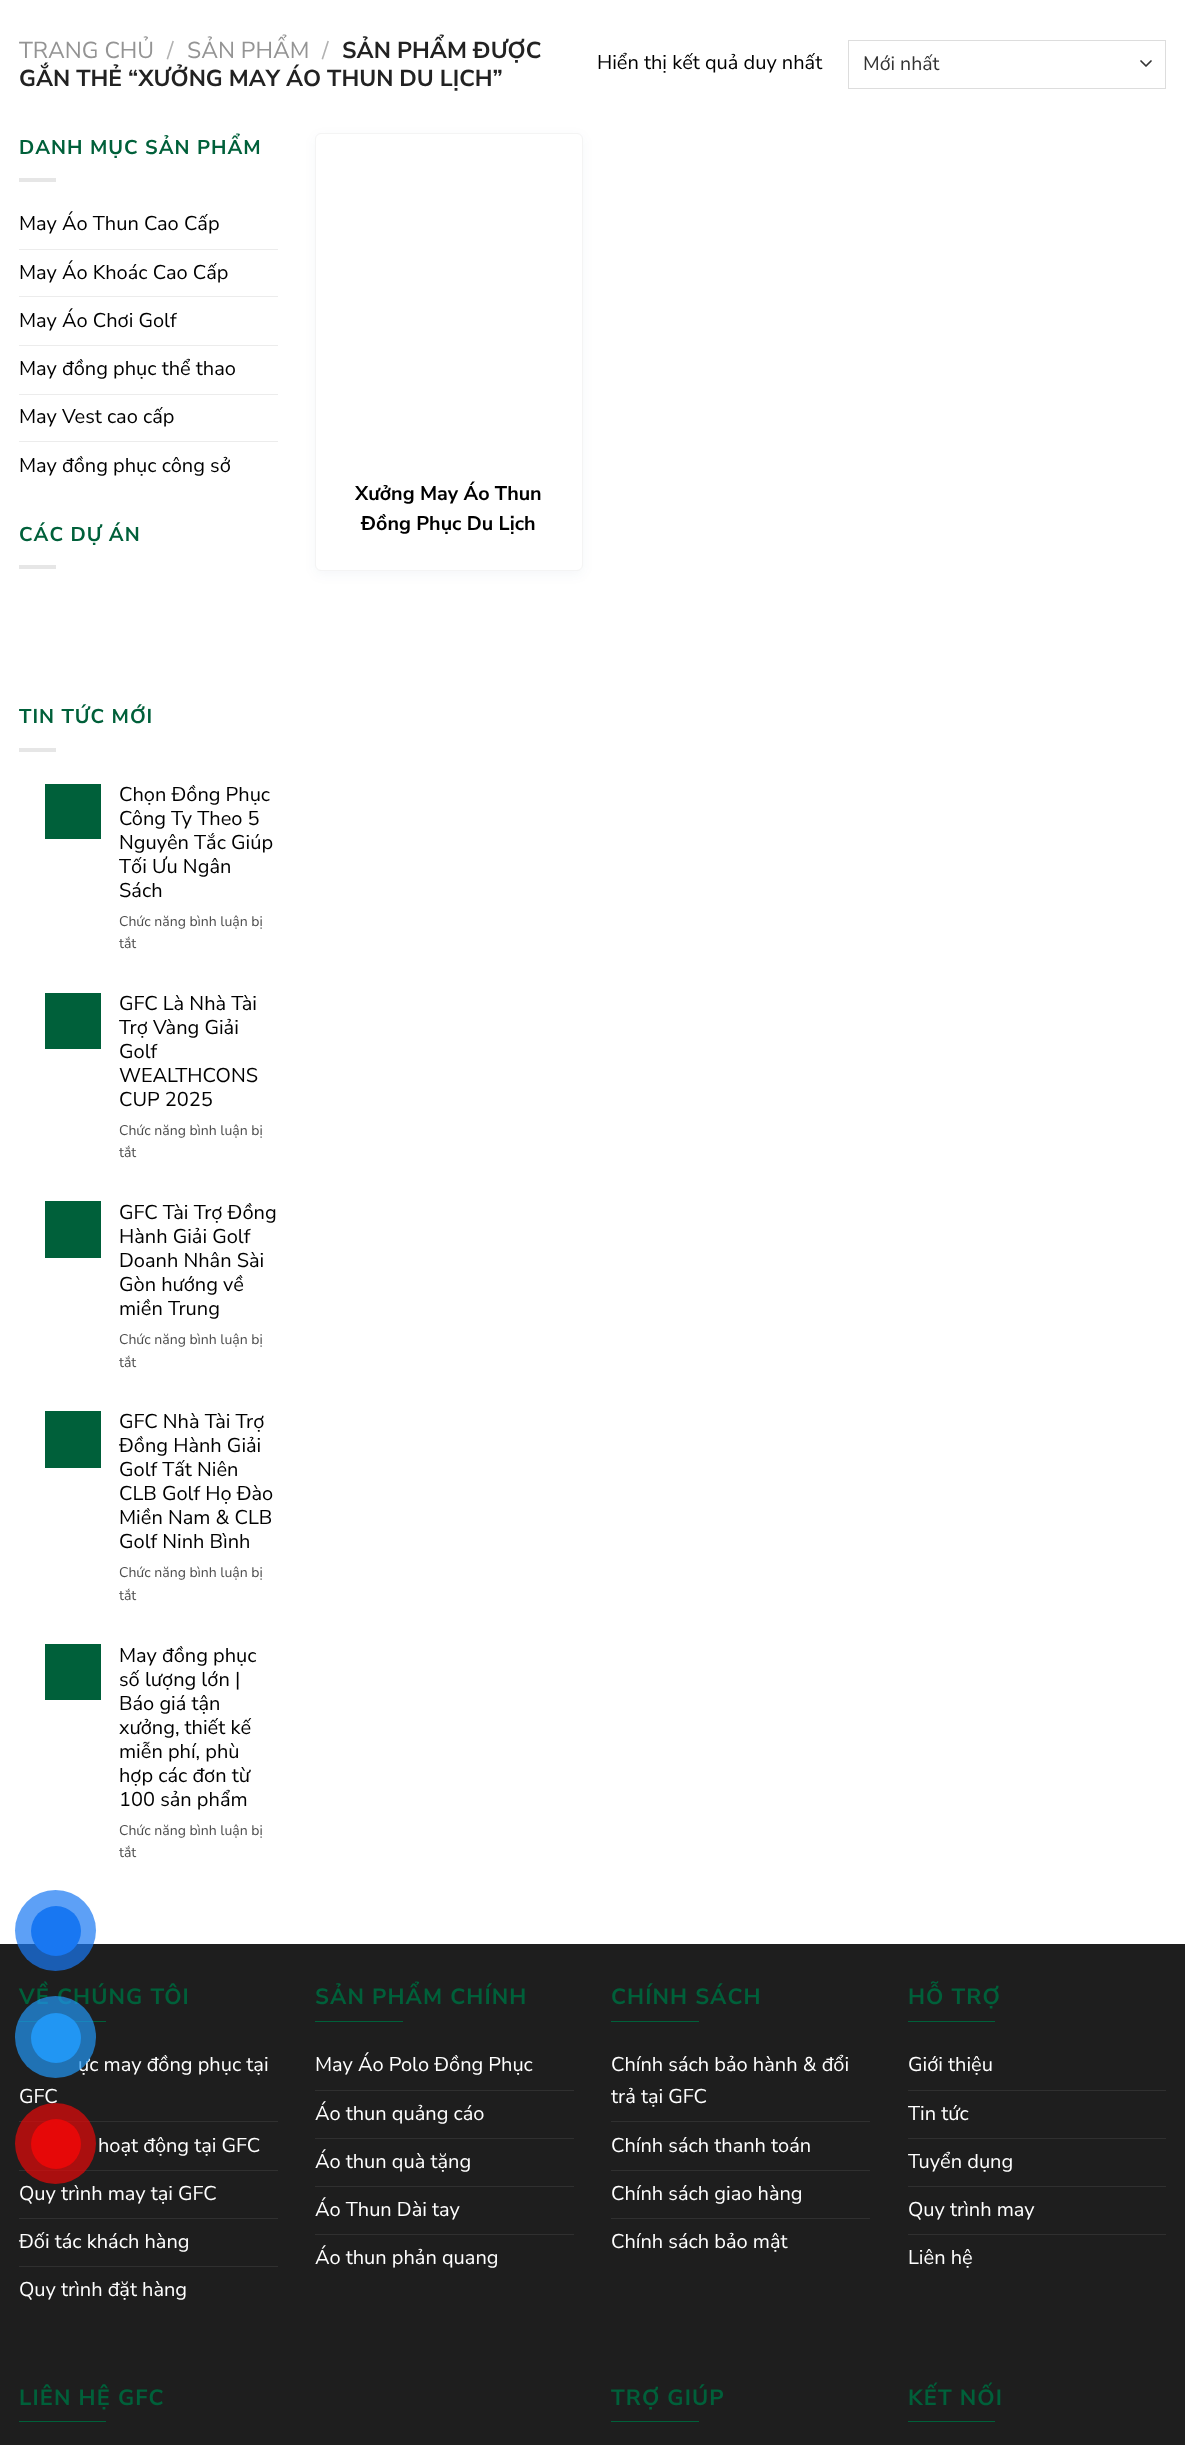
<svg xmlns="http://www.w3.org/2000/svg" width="1185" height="2445">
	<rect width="100%" height="100%" fill="#FFFFFF" />
	<text x="19" y="58" font-family="Nunito Sans" font-size="23" fill="#949494">TRANG CHỦ</text>
	<text x="167" y="58" font-family="Nunito Sans" font-size="23" fill="#B2B2B2">/</text>
	<text x="187" y="58" font-family="Nunito Sans" font-size="23" fill="#949494">SẢN PHẨM</text>
	<text x="322" y="58" font-family="Nunito Sans" font-size="23" fill="#B2B2B2">/</text>
	<g font-family="Nunito Sans" font-size="23" font-weight="700" fill="#222222">
		<text x="342" y="58">SẢN PHẨM ĐƯỢC</text>
		<text x="19" y="86" word-spacing="-0.25">GẮN THẺ “XƯỞNG MAY ÁO THUN DU LỊCH”</text>
	</g>
	<text x="597" y="69" font-family="Nunito Sans" font-size="20" fill="#000000">Hiển thị kết quả duy nhất</text>
	<path d="M1141 61L1146 66L1151 61" fill="none" stroke="#333333" stroke-width="1.7" stroke-linecap="round" stroke-linejoin="round" />
	<rect x="848.5" y="40.5" width="317" height="48" fill="none" stroke="#DDDDDD" />
	<text x="863" y="70" font-family="Nunito Sans" font-size="19.5" fill="#333333">Mới nhất</text>
	<text x="19" y="154" font-family="Nunito Sans" font-size="20" font-weight="700" letter-spacing="1" fill="#00603A">DANH MỤC SẢN PHẨM</text>
	<rect x="19" y="178" width="37" height="4" fill="#E6E6E6" />
	<text x="19" y="230" font-family="Nunito Sans" font-size="20" fill="#000000">May Áo Thun Cao Cấp</text>
	<rect x="19" y="249" width="259" height="1" fill="#ECECEC" />
	<text x="19" y="279" font-family="Nunito Sans" font-size="20" fill="#000000">May Áo Khoác Cao Cấp</text>
	<rect x="19" y="296" width="259" height="1" fill="#ECECEC" />
	<text x="19" y="327" font-family="Nunito Sans" font-size="20" fill="#000000">May Áo Chơi Golf</text>
	<rect x="19" y="345" width="259" height="1" fill="#ECECEC" />
	<text x="19" y="375" font-family="Nunito Sans" font-size="20" fill="#000000">May đồng phục thể thao</text>
	<rect x="19" y="394" width="259" height="1" fill="#ECECEC" />
	<text x="19" y="423" font-family="Nunito Sans" font-size="20" fill="#000000">May Vest cao cấp</text>
	<rect x="19" y="441" width="259" height="1" fill="#ECECEC" />
	<text x="19" y="472" font-family="Nunito Sans" font-size="20" fill="#000000">May đồng phục công sở</text>
	<text x="19" y="541" font-family="Nunito Sans" font-size="20" font-weight="700" letter-spacing="1" fill="#00603A">CÁC DỰ ÁN</text>
	<rect x="19" y="565" width="37" height="4" fill="#E6E6E6" />
	<text x="19" y="723" font-family="Nunito Sans" font-size="20" font-weight="700" letter-spacing="1" fill="#00603A">TIN TỨC MỚI</text>
	<rect x="19" y="748" width="37" height="4" fill="#E6E6E6" />
	<rect x="45" y="784" width="56" height="55" fill="#00603A" />
	<g font-family="Nunito Sans" font-size="20" fill="#000000">
		<text x="119" y="801">Chọn Đồng Phục</text>
		<text x="119" y="825">Công Ty Theo 5</text>
		<text x="119" y="849">Nguyên Tắc Giúp</text>
		<text x="119" y="873">Tối Ưu Ngân</text>
		<text x="119" y="897">Sách</text>
	</g>
	<g font-family="Nunito Sans" font-size="14" fill="#4D4D4D">
		<text x="119" y="926">Chức năng bình luận bị</text>
		<text x="119" y="948">tắt</text>
	</g>
	<rect x="45" y="993" width="56" height="56" fill="#00603A" />
	<g font-family="Nunito Sans" font-size="20" fill="#000000">
		<text x="119" y="1010">GFC Là Nhà Tài</text>
		<text x="119" y="1034">Trợ Vàng Giải</text>
		<text x="119" y="1058">Golf</text>
		<text x="119" y="1082">WEALTHCONS</text>
		<text x="119" y="1106">CUP 2025</text>
	</g>
	<g font-family="Nunito Sans" font-size="14" fill="#4D4D4D">
		<text x="119" y="1135">Chức năng bình luận bị</text>
		<text x="119" y="1157">tắt</text>
	</g>
	<rect x="45" y="1201" width="56" height="57" fill="#00603A" />
	<g font-family="Nunito Sans" font-size="20" fill="#000000">
		<text x="119" y="1219">GFC Tài Trợ Đồng</text>
		<text x="119" y="1243">Hành Giải Golf</text>
		<text x="119" y="1267">Doanh Nhân Sài</text>
		<text x="119" y="1291">Gòn hướng về</text>
		<text x="119" y="1315">miền Trung</text>
	</g>
	<g font-family="Nunito Sans" font-size="14" fill="#4D4D4D">
		<text x="119" y="1344">Chức năng bình luận bị</text>
		<text x="119" y="1367">tắt</text>
	</g>
	<rect x="45" y="1411" width="56" height="57" fill="#00603A" />
	<g font-family="Nunito Sans" font-size="20" fill="#000000">
		<text x="119" y="1428">GFC Nhà Tài Trợ</text>
		<text x="119" y="1452">Đồng Hành Giải</text>
		<text x="119" y="1476">Golf Tất Niên</text>
		<text x="119" y="1500">CLB Golf Họ Đào</text>
		<text x="119" y="1524">Miền Nam &amp; CLB</text>
		<text x="119" y="1548">Golf Ninh Bình</text>
	</g>
	<g font-family="Nunito Sans" font-size="14" fill="#4D4D4D">
		<text x="119" y="1577">Chức năng bình luận bị</text>
		<text x="119" y="1600">tắt</text>
	</g>
	<rect x="45" y="1644" width="56" height="56" fill="#00603A" />
	<g font-family="Nunito Sans" font-size="20" fill="#000000">
		<text x="119" y="1662">May đồng phục</text>
		<text x="119" y="1686">số lượng lớn |</text>
		<text x="119" y="1710">Báo giá tận</text>
		<text x="119" y="1734">xưởng, thiết kế</text>
		<text x="119" y="1758">miễn phí, phù</text>
		<text x="119" y="1782">hợp các đơn từ</text>
		<text x="119" y="1806">100 sản phẩm</text>
	</g>
	<g font-family="Nunito Sans" font-size="14" fill="#4D4D4D">
		<text x="119" y="1835">Chức năng bình luận bị</text>
		<text x="119" y="1857">tắt</text>
	</g>
	<rect x="315" y="136" width="268" height="439" rx="6" fill="#023766" fill-opacity="0.04" filter="blur(6px)" />
	<rect x="315.5" y="133.5" width="267" height="437" rx="5.5" fill="#FFFFFF" stroke="#F4F4F4" />
	<g font-family="Nunito Sans" font-size="19.75" font-weight="700" fill="#000000">
		<text x="355" y="500">Xưởng May Áo Thun</text>
		<text x="361" y="530">Đồng Phục Du Lịch</text>
	</g>
	<rect x="0" y="1944" width="1185" height="501" fill="#1E1E1E" />
	<text x="19" y="2004" font-family="Nunito Sans" font-size="22" font-weight="700" letter-spacing="1.1" fill="#00603A">VỀ CHÚNG TÔI</text>
	<rect x="19" y="2021" width="87" height="1" fill="#00603A" />
	<g font-family="Nunito Sans" font-size="20" fill="#FFFFFF">
		<text x="78" y="2071">ực may đồng phục tại</text>
		<text x="19" y="2103">GFC</text>
	</g>
	<rect x="19" y="2121" width="259" height="1" fill="#303030" />
	<text x="98" y="2152" font-family="Nunito Sans" font-size="20" fill="#FFFFFF">hoạt động tại GFC</text>
	<rect x="19" y="2170" width="259" height="1" fill="#303030" />
	<text x="19" y="2200" font-family="Nunito Sans" font-size="20" fill="#FFFFFF">Quy trình may tại GFC</text>
	<rect x="19" y="2218" width="259" height="1" fill="#303030" />
	<text x="19" y="2248" font-family="Nunito Sans" font-size="20" fill="#FFFFFF">Đối tác khách hàng</text>
	<rect x="19" y="2266" width="259" height="1" fill="#303030" />
	<text x="19" y="2296" font-family="Nunito Sans" font-size="20" fill="#FFFFFF">Quy trình đặt hàng</text>
	<text x="315" y="2004" font-family="Nunito Sans" font-size="22" font-weight="700" letter-spacing="1.1" fill="#00603A">SẢN PHẨM CHÍNH</text>
	<rect x="315" y="2021" width="88" height="1" fill="#00603A" />
	<text x="315" y="2071" font-family="Nunito Sans" font-size="20" fill="#FFFFFF">May Áo Polo Đồng Phục</text>
	<rect x="315" y="2090" width="259" height="1" fill="#303030" />
	<text x="315" y="2120" font-family="Nunito Sans" font-size="20" fill="#FFFFFF">Áo thun quảng cáo</text>
	<rect x="315" y="2138" width="259" height="1" fill="#303030" />
	<text x="315" y="2168" font-family="Nunito Sans" font-size="20" fill="#FFFFFF">Áo thun quà tặng</text>
	<rect x="315" y="2186" width="259" height="1" fill="#303030" />
	<text x="315" y="2216" font-family="Nunito Sans" font-size="20" fill="#FFFFFF">Áo Thun Dài tay</text>
	<rect x="315" y="2234" width="259" height="1" fill="#303030" />
	<text x="315" y="2264" font-family="Nunito Sans" font-size="20" fill="#FFFFFF">Áo thun phản quang</text>
	<text x="611" y="2004" font-family="Nunito Sans" font-size="22" font-weight="700" letter-spacing="1.1" fill="#00603A">CHÍNH SÁCH</text>
	<rect x="611" y="2021" width="88" height="1" fill="#00603A" />
	<g font-family="Nunito Sans" font-size="20" fill="#FFFFFF">
		<text x="611" y="2071">Chính sách bảo hành &amp; đổi</text>
		<text x="611" y="2103">trả tại GFC</text>
	</g>
	<rect x="611" y="2121" width="259" height="1" fill="#303030" />
	<text x="611" y="2152" font-family="Nunito Sans" font-size="20" fill="#FFFFFF">Chính sách thanh toán</text>
	<rect x="611" y="2170" width="259" height="1" fill="#303030" />
	<text x="611" y="2200" font-family="Nunito Sans" font-size="20" fill="#FFFFFF">Chính sách giao hàng</text>
	<rect x="611" y="2218" width="259" height="1" fill="#303030" />
	<text x="611" y="2248" font-family="Nunito Sans" font-size="20" fill="#FFFFFF">Chính sách bảo mật</text>
	<text x="908" y="2004" font-family="Nunito Sans" font-size="22" font-weight="700" letter-spacing="1.1" fill="#00603A">HỖ TRỢ</text>
	<rect x="908" y="2021" width="87" height="1" fill="#00603A" />
	<text x="908" y="2071" font-family="Nunito Sans" font-size="20" fill="#FFFFFF">Giới thiệu</text>
	<rect x="908" y="2090" width="258" height="1" fill="#303030" />
	<text x="908" y="2120" font-family="Nunito Sans" font-size="20" fill="#FFFFFF">Tin tức</text>
	<rect x="908" y="2138" width="258" height="1" fill="#303030" />
	<text x="908" y="2168" font-family="Nunito Sans" font-size="20" fill="#FFFFFF">Tuyển dụng</text>
	<rect x="908" y="2186" width="258" height="1" fill="#303030" />
	<text x="908" y="2216" font-family="Nunito Sans" font-size="20" fill="#FFFFFF">Quy trình may</text>
	<rect x="908" y="2234" width="258" height="1" fill="#303030" />
	<text x="908" y="2264" font-family="Nunito Sans" font-size="20" fill="#FFFFFF">Liên hệ</text>
	<text x="19" y="2405" font-family="Nunito Sans" font-size="22" font-weight="700" letter-spacing="1.1" fill="#00603A">LIÊN HỆ GFC</text>
	<rect x="19" y="2421" width="87" height="1" fill="#00603A" />
	<text x="611" y="2405" font-family="Nunito Sans" font-size="22" font-weight="700" letter-spacing="1.1" fill="#00603A">TRỢ GIÚP</text>
	<rect x="611" y="2421" width="88" height="1" fill="#00603A" />
	<text x="908" y="2405" font-family="Nunito Sans" font-size="22" font-weight="700" letter-spacing="1.1" fill="#00603A">KẾT NỐI</text>
	<rect x="908" y="2421" width="87" height="1" fill="#00603A" />
	<circle cx="55.5" cy="1930.5" r="40.5" fill="#1877F2" fill-opacity="0.7" />
	<circle cx="56" cy="1931" r="25" fill="#1877F2" />
	<rect x="15" y="1996" width="81" height="82" rx="40.5" fill="#2196F3" fill-opacity="0.7" />
	<circle cx="56" cy="2038" r="25" fill="#2196F3" />
	<circle cx="55.5" cy="2143.5" r="40.5" fill="#E60808" fill-opacity="0.7" />
	<circle cx="56" cy="2144" r="25" fill="#E60808" />
</svg>
